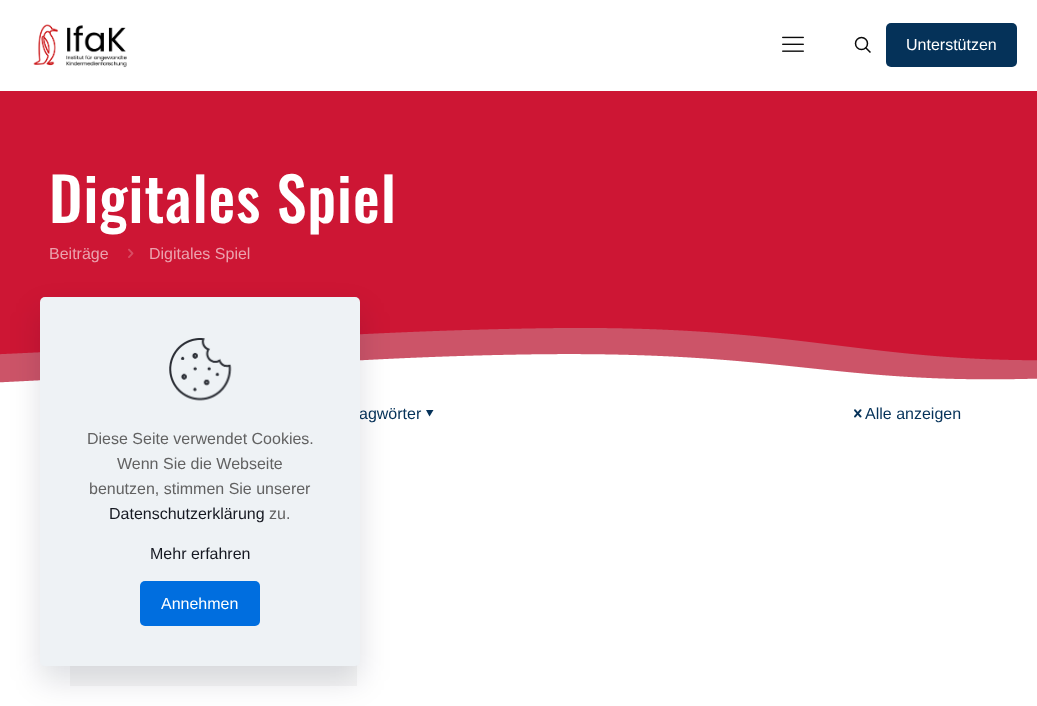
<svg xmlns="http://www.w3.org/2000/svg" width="1037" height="706">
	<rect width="100%" height="100%" fill="#FFFFFF" />
	<image x="33" y="24" width="94" height="44" href="assets/img1.png" />
	<image x="782" y="36" width="22" height="16" href="assets/img2.png" />
	<circle cx="861.5" cy="43.5" r="6" fill="none" stroke="#0A0A0A" stroke-width="1.5" />
	<path d="M865.5 47.5L870.5 52.5" fill="none" stroke="#0A0A0A" stroke-width="1.5" />
	<rect x="886" y="23" width="131" height="44" rx="5" fill="#053259" />
	<text x="906" y="50" font-family="Liberation Sans" font-size="16" fill="#FFFFFF">Unterstützen</text>
	<image x="0" y="91" width="1037" height="292" href="assets/img3.png" />
	<text x="49" y="223" font-family="Oswald" font-size="60" font-weight="500" letter-spacing="1" fill="#FFFFFF">Digitales Spiel</text>
	<text x="49" y="259" font-family="Liberation Sans" font-size="16" fill="#EBA2AE">Beiträge</text>
	<image x="128" y="248" width="6" height="10" href="assets/img4.png" />
	<text x="149" y="259" font-family="Liberation Sans" font-size="16" fill="#EBA2AE">Digitales Spiel</text>
	<text x="359" y="419" font-family="Liberation Sans" font-size="16" fill="#053259">agwörter</text>
	<path d="M433.5 410L429.5 416.5L426 410Z" fill="#053259" />
	<image x="854" y="409" width="8" height="9" href="assets/img5.png" />
	<text x="865" y="419" font-family="Liberation Sans" font-size="16" fill="#053259">Alle anzeigen</text>
	<image x="70" y="665" width="287" height="21" href="assets/img6.png" />
	<rect x="40" y="312" width="320" height="369" rx="5" fill="#010727" fill-opacity="0.13" filter="blur(15px)" />
	<rect x="40" y="297" width="320" height="369" rx="5" fill="#EEF2F5" />
	<image x="169" y="338" width="63" height="63" href="assets/img7.png" />
	<g font-family="Liberation Sans" font-size="16" fill="#626262">
		<text x="87" y="444">Diese Seite verwendet Cookies.</text>
		<text x="117" y="469">Wenn Sie die Webseite</text>
		<text x="89" y="494">benutzen, stimmen Sie unserer</text>
	</g>
	<text x="109" y="519" font-family="Liberation Sans" font-size="16" fill="#161922">Datenschutzerklärung</text>
	<text x="269" y="519" font-family="Liberation Sans" font-size="16" fill="#626262">zu.</text>
	<text x="150" y="559" font-family="Liberation Sans" font-size="16" fill="#161922">Mehr erfahren</text>
	<rect x="140" y="581" width="120" height="45" rx="5" fill="#006EDF" />
	<text x="161" y="609" font-family="Liberation Sans" font-size="16" fill="#FFFFFF">Annehmen</text>
</svg>
